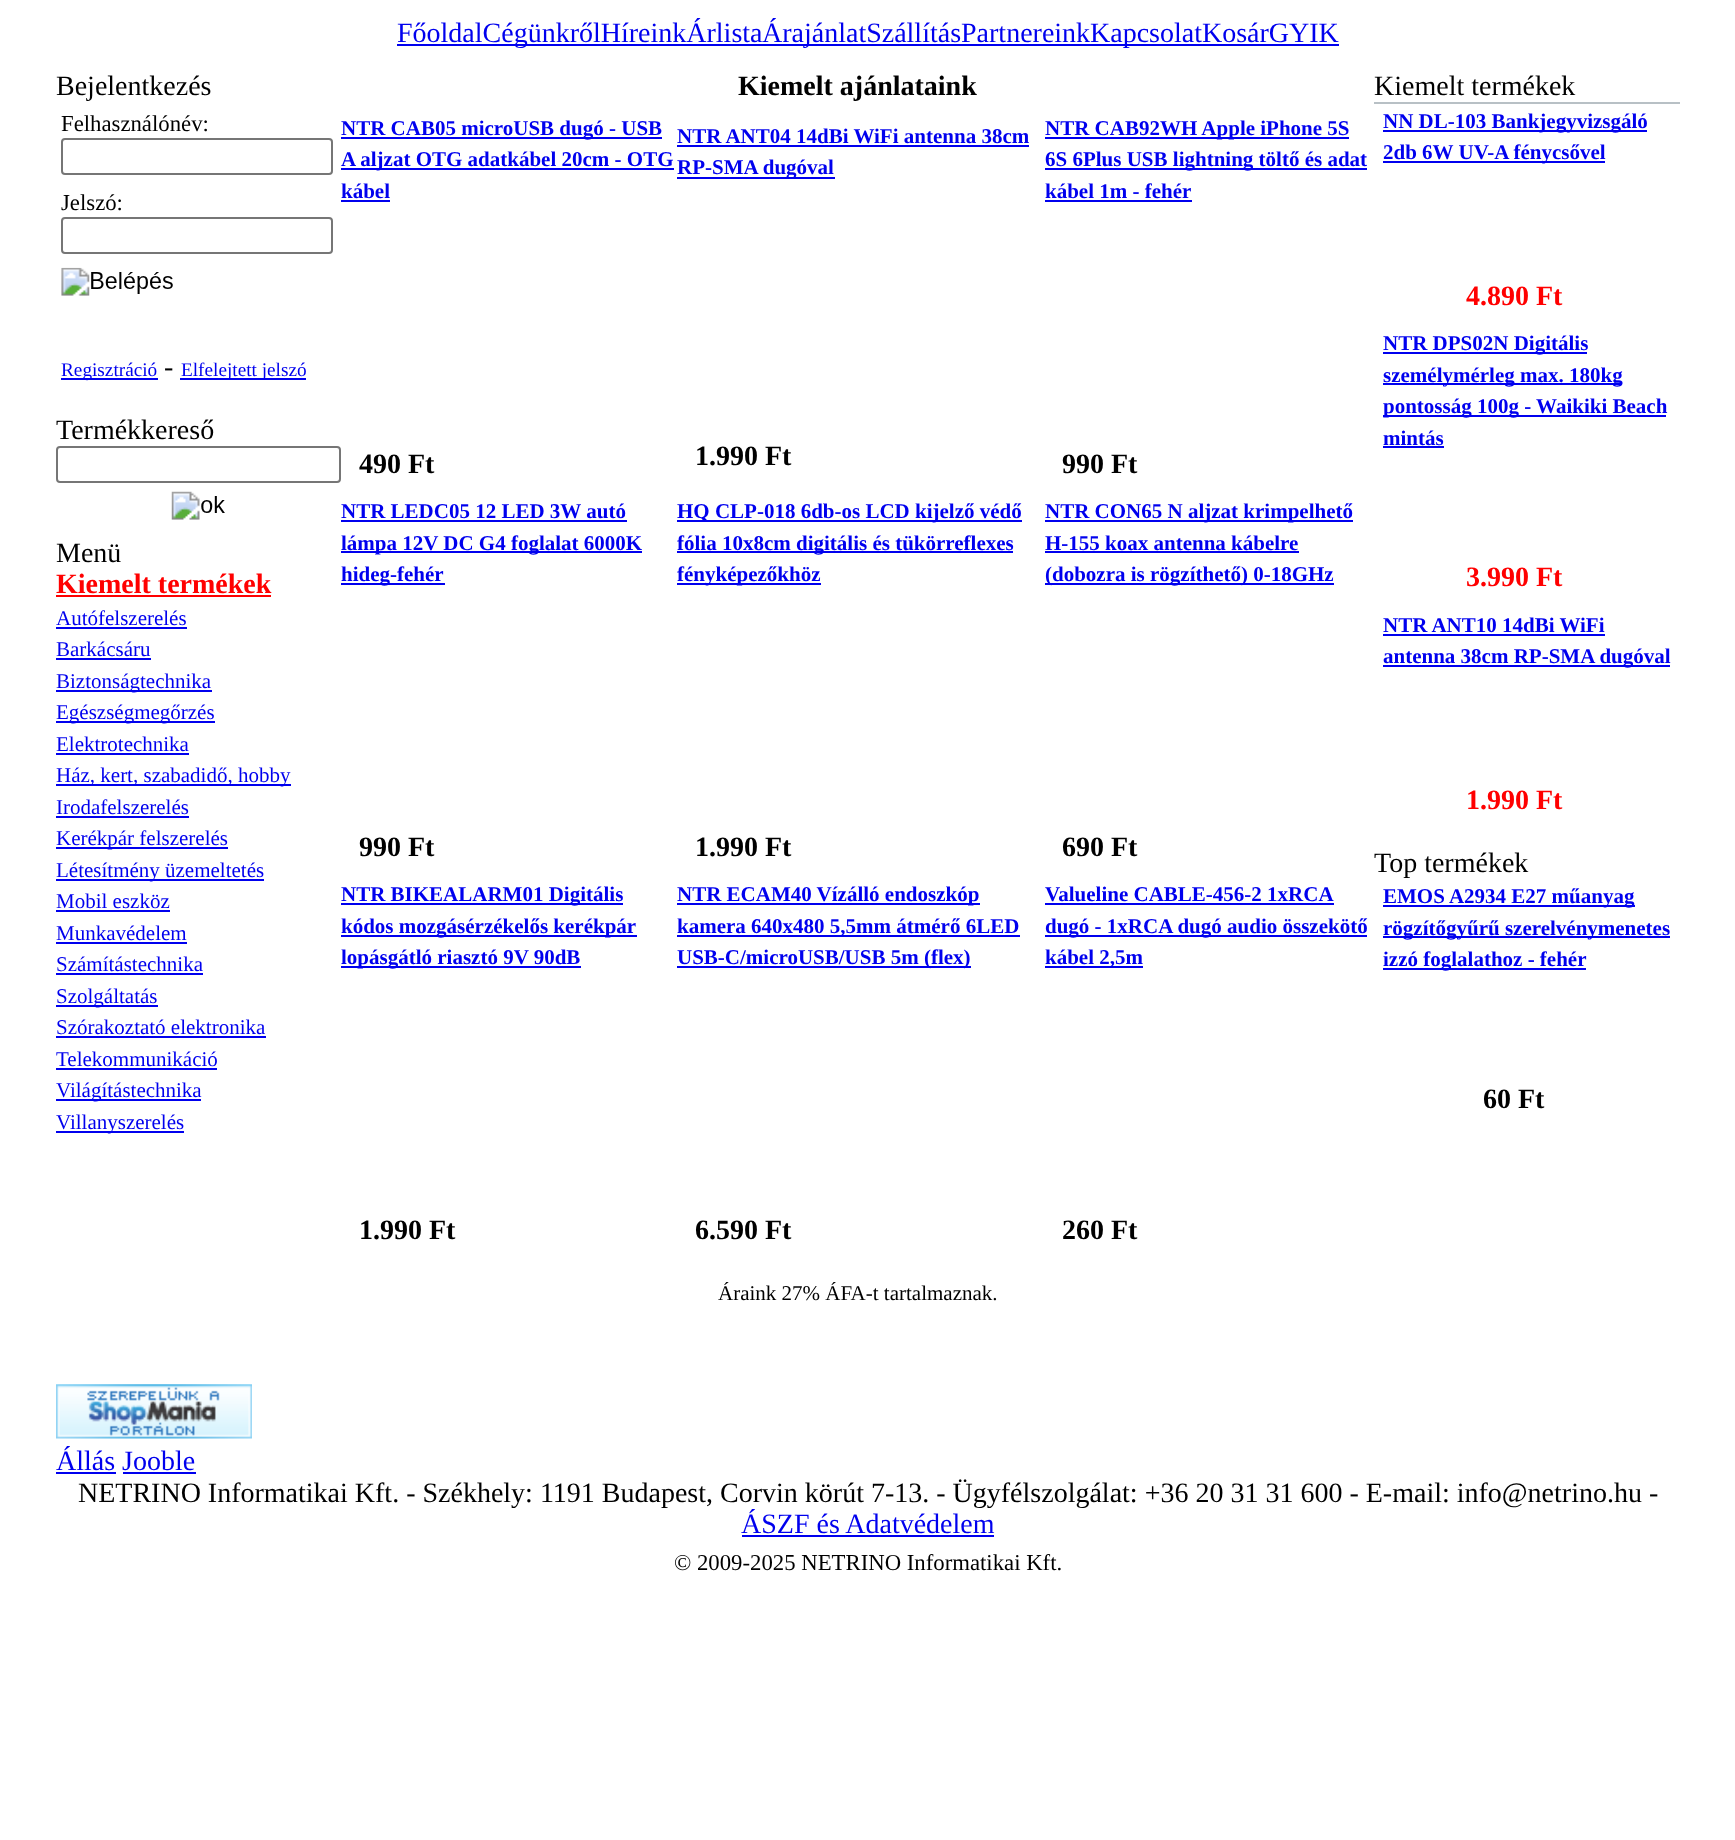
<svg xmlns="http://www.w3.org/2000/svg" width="1735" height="1840">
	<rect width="100%" height="100%" fill="#FFFFFF" />
	<rect x="397" y="44" width="289" height="2" fill="#0000EE" />
	<text x="397" y="42" font-family="Liberation Serif" font-size="28" fill="#0000EE">FőoldalCégünkrőlHíreinkÁrlista</text>
	<rect x="686" y="44" width="180" height="2" fill="#0000EE" />
	<text x="762" y="42" font-family="Liberation Serif" font-size="28" fill="#0000EE">ÁrajánlatSzállításPartnereink</text>
	<rect x="866" y="44" width="336" height="2" fill="#0000EE" />
	<text x="1090" y="42" font-family="Liberation Serif" font-size="28" fill="#0000EE">KapcsolatKosárGYIK</text>
	<rect x="1202" y="44" width="137" height="2" fill="#0000EE" />
	<text x="56" y="95" font-family="Liberation Serif" font-size="28" fill="#000000">Bejelentkezés</text>
	<text x="61" y="131" font-family="Liberation Serif" font-size="22.75" fill="#000000">Felhasználónév:</text>
	<rect x="62" y="139" width="270" height="35" rx="3" fill="none" stroke="#767676" stroke-width="2" />
	<text x="61" y="210" font-family="Liberation Serif" font-size="22.75" fill="#000000">Jelszó:</text>
	<rect x="62" y="218" width="270" height="35" rx="3" fill="none" stroke="#767676" stroke-width="2" />
	<image x="61" y="267" width="112" height="29" href="assets/img1.png" />
	<rect x="61" y="378" width="97" height="2" fill="#0000EE" />
	<text x="61" y="376" font-family="Liberation Serif" font-size="19.25" fill="#0000EE">Regisztráció</text>
	<text x="164" y="376" font-family="Liberation Serif" font-size="28" fill="#000000">-</text>
	<rect x="180" y="378" width="126" height="2" fill="#0000EE" />
	<text x="181" y="376" font-family="Liberation Serif" font-size="19.25" fill="#0000EE">Elfelejtett jelszó</text>
	<text x="56" y="439" font-family="Liberation Serif" font-size="28" fill="#000000">Termékkereső</text>
	<rect x="57" y="447" width="283" height="35" rx="3" fill="none" stroke="#767676" stroke-width="2" />
	<image x="171" y="491" width="54" height="29" href="assets/img2.png" />
	<text x="56" y="562" font-family="Liberation Serif" font-size="28" fill="#000000">Menü</text>
	<text x="56" y="593" font-family="Liberation Serif" font-size="28" font-weight="700" fill="#FF0000">Kiemelt termékek</text>
	<rect x="56" y="595" width="215" height="2" fill="#FF0000" />
	<text x="56" y="625" font-family="Liberation Serif" font-size="21" fill="#0000EE">Autófelszerelés</text>
	<rect x="56" y="627" width="131" height="2" fill="#0000EE" />
	<text x="56" y="656" font-family="Liberation Serif" font-size="21" fill="#0000EE">Barkácsáru</text>
	<rect x="56" y="658" width="95" height="2" fill="#0000EE" />
	<rect x="56" y="690" width="156" height="2" fill="#0000EE" />
	<text x="56" y="688" font-family="Liberation Serif" font-size="21" fill="#0000EE">Biztonságtechnika</text>
	<rect x="56" y="721" width="159" height="2" fill="#0000EE" />
	<g font-family="Liberation Serif" font-size="21" fill="#0000EE">
		<text x="56" y="719">Egészségmegőrzés</text>
		<text x="56" y="751">Elektrotechnika</text>
	</g>
	<rect x="56" y="753" width="133" height="2" fill="#0000EE" />
	<rect x="56" y="784" width="235" height="2" fill="#0000EE" />
	<g font-family="Liberation Serif" font-size="21" fill="#0000EE">
		<text x="56" y="782">Ház, kert, szabadidő, hobby</text>
		<text x="56" y="814">Irodafelszerelés</text>
	</g>
	<rect x="56" y="816" width="133" height="2" fill="#0000EE" />
	<rect x="56" y="847" width="172" height="2" fill="#0000EE" />
	<text x="56" y="845" font-family="Liberation Serif" font-size="21" fill="#0000EE">Kerékpár felszerelés</text>
	<rect x="56" y="879" width="208" height="2" fill="#0000EE" />
	<g font-family="Liberation Serif" font-size="21" fill="#0000EE">
		<text x="56" y="877">Létesítmény üzemeltetés</text>
		<text x="56" y="908">Mobil eszköz</text>
	</g>
	<rect x="56" y="910" width="114" height="2" fill="#0000EE" />
	<text x="56" y="940" font-family="Liberation Serif" font-size="21" fill="#0000EE">Munkavédelem</text>
	<rect x="56" y="942" width="131" height="2" fill="#0000EE" />
	<text x="56" y="971" font-family="Liberation Serif" font-size="21" fill="#0000EE">Számítástechnika</text>
	<rect x="56" y="973" width="147" height="2" fill="#0000EE" />
	<rect x="56" y="1005" width="102" height="2" fill="#0000EE" />
	<g font-family="Liberation Serif" font-size="21" fill="#0000EE">
		<text x="56" y="1003">Szolgáltatás</text>
		<text x="56" y="1034">Szórakoztató elektronika</text>
	</g>
	<rect x="56" y="1036" width="210" height="2" fill="#0000EE" />
	<text x="56" y="1066" font-family="Liberation Serif" font-size="21" fill="#0000EE">Telekommunikáció</text>
	<rect x="56" y="1068" width="161" height="2" fill="#0000EE" />
	<rect x="56" y="1099" width="145" height="2" fill="#0000EE" />
	<text x="56" y="1097" font-family="Liberation Serif" font-size="21" fill="#0000EE">Világítástechnika</text>
	<rect x="56" y="1131" width="128" height="2" fill="#0000EE" />
	<text x="56" y="1129" font-family="Liberation Serif" font-size="21" fill="#0000EE">Villanyszerelés</text>
	<text x="738" y="95" font-family="Liberation Serif" font-size="28" font-weight="700" fill="#000000">Kiemelt ajánlataink</text>
	<rect x="341" y="137" width="321" height="2" fill="#0000EE" />
	<text x="341" y="135" font-family="Liberation Serif" font-size="21" font-weight="700" fill="#0000EE">NTR CAB05 microUSB dugó - USB</text>
	<rect x="341" y="168" width="333" height="2" fill="#0000EE" />
	<g font-family="Liberation Serif" font-size="21" font-weight="700" fill="#0000EE">
		<text x="341" y="166">A aljzat OTG adatkábel 20cm - OTG</text>
		<text x="341" y="198">kábel</text>
	</g>
	<rect x="341" y="200" width="49" height="2" fill="#0000EE" />
	<text x="359" y="473" font-family="Liberation Serif" font-size="28" font-weight="700" fill="#000000">490 Ft</text>
	<text x="677" y="143" font-family="Liberation Serif" font-size="21" font-weight="700" fill="#0000EE">NTR ANT04 14dBi WiFi antenna 38cm</text>
	<rect x="677" y="145" width="352" height="2" fill="#0000EE" />
	<rect x="677" y="177" width="158" height="2" fill="#0000EE" />
	<text x="677" y="174" font-family="Liberation Serif" font-size="21" font-weight="700" fill="#0000EE">RP-SMA dugóval</text>
	<text x="695" y="465" font-family="Liberation Serif" font-size="28" font-weight="700" fill="#000000">1.990 Ft</text>
	<rect x="1045" y="137" width="304" height="2" fill="#0000EE" />
	<text x="1045" y="135" font-family="Liberation Serif" font-size="21" font-weight="700" fill="#0000EE">NTR CAB92WH Apple iPhone 5S</text>
	<rect x="1045" y="168" width="322" height="2" fill="#0000EE" />
	<g font-family="Liberation Serif" font-size="21" font-weight="700" fill="#0000EE">
		<text x="1045" y="166">6S 6Plus USB lightning töltő és adat</text>
		<text x="1045" y="198">kábel 1m - fehér</text>
	</g>
	<rect x="1045" y="200" width="147" height="2" fill="#0000EE" />
	<text x="1062" y="473" font-family="Liberation Serif" font-size="28" font-weight="700" fill="#000000">990 Ft</text>
	<text x="341" y="518" font-family="Liberation Serif" font-size="21" font-weight="700" fill="#0000EE">NTR LEDC05 12 LED 3W autó</text>
	<rect x="341" y="520" width="286" height="2" fill="#0000EE" />
	<rect x="341" y="551" width="301" height="2" fill="#0000EE" />
	<text x="341" y="550" font-family="Liberation Serif" font-size="21" font-weight="700" fill="#0000EE">lámpa 12V DC G4 foglalat 6000K</text>
	<rect x="341" y="583" width="104" height="2" fill="#0000EE" />
	<text x="341" y="581" font-family="Liberation Serif" font-size="21" font-weight="700" fill="#0000EE">hideg-fehér</text>
	<text x="359" y="856" font-family="Liberation Serif" font-size="28" font-weight="700" fill="#000000">990 Ft</text>
	<rect x="677" y="520" width="345" height="2" fill="#0000EE" />
	<text x="677" y="518" font-family="Liberation Serif" font-size="21" font-weight="700" fill="#0000EE">HQ CLP-018 6db-os LCD kijelző védő</text>
	<rect x="677" y="551" width="336" height="2" fill="#0000EE" />
	<text x="677" y="550" font-family="Liberation Serif" font-size="21" font-weight="700" fill="#0000EE">fólia 10x8cm digitális és tükörreflexes</text>
	<rect x="677" y="583" width="144" height="2" fill="#0000EE" />
	<text x="677" y="581" font-family="Liberation Serif" font-size="21" font-weight="700" fill="#0000EE">fényképezőkhöz</text>
	<text x="695" y="856" font-family="Liberation Serif" font-size="28" font-weight="700" fill="#000000">1.990 Ft</text>
	<rect x="1045" y="520" width="308" height="2" fill="#0000EE" />
	<g font-family="Liberation Serif" font-size="21" font-weight="700" fill="#0000EE">
		<text x="1045" y="518">NTR CON65 N aljzat krimpelhető</text>
		<text x="1045" y="550">H-155 koax antenna kábelre</text>
	</g>
	<rect x="1045" y="551" width="254" height="2" fill="#0000EE" />
	<rect x="1045" y="583" width="289" height="2" fill="#0000EE" />
	<text x="1045" y="581" font-family="Liberation Serif" font-size="21" font-weight="700" fill="#0000EE">(dobozra is rögzíthető) 0-18GHz</text>
	<text x="1062" y="856" font-family="Liberation Serif" font-size="28" font-weight="700" fill="#000000">690 Ft</text>
	<rect x="341" y="903" width="282" height="2" fill="#0000EE" />
	<text x="341" y="901" font-family="Liberation Serif" font-size="21" font-weight="700" fill="#0000EE">NTR BIKEALARM01 Digitális</text>
	<rect x="341" y="935" width="296" height="2" fill="#0000EE" />
	<text x="341" y="933" font-family="Liberation Serif" font-size="21" font-weight="700" fill="#0000EE">kódos mozgásérzékelős kerékpár</text>
	<rect x="341" y="966" width="240" height="2" fill="#0000EE" />
	<text x="341" y="964" font-family="Liberation Serif" font-size="21" font-weight="700" fill="#0000EE">lopásgátló riasztó 9V 90dB</text>
	<text x="359" y="1239" font-family="Liberation Serif" font-size="28" font-weight="700" fill="#000000">1.990 Ft</text>
	<rect x="677" y="903" width="303" height="2" fill="#0000EE" />
	<text x="677" y="901" font-family="Liberation Serif" font-size="21" font-weight="700" fill="#0000EE">NTR ECAM40 Vízálló endoszkóp</text>
	<rect x="677" y="935" width="343" height="2" fill="#0000EE" />
	<text x="677" y="933" font-family="Liberation Serif" font-size="21" font-weight="700" fill="#0000EE">kamera 640x480 5,5mm átmérő 6LED</text>
	<rect x="677" y="966" width="294" height="2" fill="#0000EE" />
	<text x="677" y="964" font-family="Liberation Serif" font-size="21" font-weight="700" fill="#0000EE">USB-C/microUSB/USB 5m (flex)</text>
	<text x="695" y="1239" font-family="Liberation Serif" font-size="28" font-weight="700" fill="#000000">6.590 Ft</text>
	<text x="1045" y="901" font-family="Liberation Serif" font-size="21" font-weight="700" fill="#0000EE">Valueline CABLE-456-2 1xRCA</text>
	<rect x="1045" y="903" width="289" height="2" fill="#0000EE" />
	<rect x="1045" y="935" width="322" height="2" fill="#0000EE" />
	<text x="1045" y="933" font-family="Liberation Serif" font-size="21" font-weight="700" fill="#0000EE">dugó - 1xRCA dugó audio összekötő</text>
	<rect x="1045" y="966" width="98" height="2" fill="#0000EE" />
	<text x="1045" y="964" font-family="Liberation Serif" font-size="21" font-weight="700" fill="#0000EE">kábel 2,5m</text>
	<text x="1062" y="1239" font-family="Liberation Serif" font-size="28" font-weight="700" fill="#000000">260 Ft</text>
	<text x="718" y="1300" font-family="Liberation Serif" font-size="21" fill="#000000">Áraink 27% ÁFA-t tartalmaznak.</text>
	<text x="1374" y="95" font-family="Liberation Serif" font-size="28" fill="#000000">Kiemelt termékek</text>
	<rect x="1374" y="102" width="306" height="2" fill="#B8C0C5" />
	<rect x="1383" y="130" width="264" height="2" fill="#0000EE" />
	<text x="1383" y="128" font-family="Liberation Serif" font-size="21" font-weight="700" fill="#0000EE">NN DL-103 Bankjegyvizsgáló</text>
	<rect x="1383" y="161" width="222" height="2" fill="#0000EE" />
	<text x="1383" y="159" font-family="Liberation Serif" font-size="21" font-weight="700" fill="#0000EE">2db 6W UV-A fénycsővel</text>
	<text x="1466" y="305" font-family="Liberation Serif" font-size="28" font-weight="700" fill="#FF0000">4.890 Ft</text>
	<rect x="1383" y="352" width="204" height="2" fill="#0000EE" />
	<text x="1383" y="350" font-family="Liberation Serif" font-size="21" font-weight="700" fill="#0000EE">NTR DPS02N Digitális</text>
	<rect x="1383" y="383" width="239" height="2" fill="#0000EE" />
	<text x="1383" y="382" font-family="Liberation Serif" font-size="21" font-weight="700" fill="#0000EE">személymérleg max. 180kg</text>
	<rect x="1383" y="415" width="283" height="2" fill="#0000EE" />
	<g font-family="Liberation Serif" font-size="21" font-weight="700" fill="#0000EE">
		<text x="1383" y="413">pontosság 100g - Waikiki Beach</text>
		<text x="1383" y="445">mintás</text>
	</g>
	<rect x="1383" y="446" width="61" height="2" fill="#0000EE" />
	<text x="1466" y="586" font-family="Liberation Serif" font-size="28" font-weight="700" fill="#FF0000">3.990 Ft</text>
	<text x="1383" y="632" font-family="Liberation Serif" font-size="21" font-weight="700" fill="#0000EE">NTR ANT10 14dBi WiFi</text>
	<rect x="1383" y="634" width="222" height="2" fill="#0000EE" />
	<rect x="1383" y="665" width="287" height="2" fill="#0000EE" />
	<text x="1383" y="663" font-family="Liberation Serif" font-size="21" font-weight="700" fill="#0000EE">antenna 38cm RP-SMA dugóval</text>
	<text x="1466" y="809" font-family="Liberation Serif" font-size="28" font-weight="700" fill="#FF0000">1.990 Ft</text>
	<text x="1374" y="872" font-family="Liberation Serif" font-size="28" fill="#000000">Top termékek</text>
	<rect x="1383" y="905" width="252" height="2" fill="#0000EE" />
	<text x="1383" y="903" font-family="Liberation Serif" font-size="21" font-weight="700" fill="#0000EE">EMOS A2934 E27 műanyag</text>
	<rect x="1383" y="936" width="287" height="2" fill="#0000EE" />
	<text x="1383" y="935" font-family="Liberation Serif" font-size="21" font-weight="700" fill="#0000EE">rögzítőgyűrű szerelvénymenetes</text>
	<rect x="1383" y="968" width="203" height="2" fill="#0000EE" />
	<text x="1383" y="966" font-family="Liberation Serif" font-size="21" font-weight="700" fill="#0000EE">izzó foglalathoz - fehér</text>
	<text x="1483" y="1108" font-family="Liberation Serif" font-size="28" font-weight="700" fill="#000000">60 Ft</text>
	<image x="56" y="1384" width="196" height="55" href="assets/img3.png" />
	<text x="56" y="1470" font-family="Liberation Serif" font-size="28" fill="#0000EE">Állás Jooble</text>
	<rect x="56" y="1472" width="60" height="2" fill="#0000EE" />
	<rect x="123" y="1472" width="73" height="2" fill="#0000EE" />
	<text x="78" y="1502" font-family="Liberation Serif" font-size="28" fill="#000000">NETRINO Informatikai Kft. - Székhely: 1191 Budapest, Corvin körút 7-13. - Ügyfélszolgálat: +36 20 31 31 600 - E-mail: info@netrino.hu -</text>
	<text x="741" y="1533" font-family="Liberation Serif" font-size="28" fill="#0000EE">ÁSZF és Adatvédelem</text>
	<rect x="742" y="1535" width="252" height="2" fill="#0000EE" />
	<text x="674" y="1570" font-family="Liberation Serif" font-size="22.75" fill="#000000">© 2009-2025 NETRINO Informatikai Kft.</text>
</svg>
